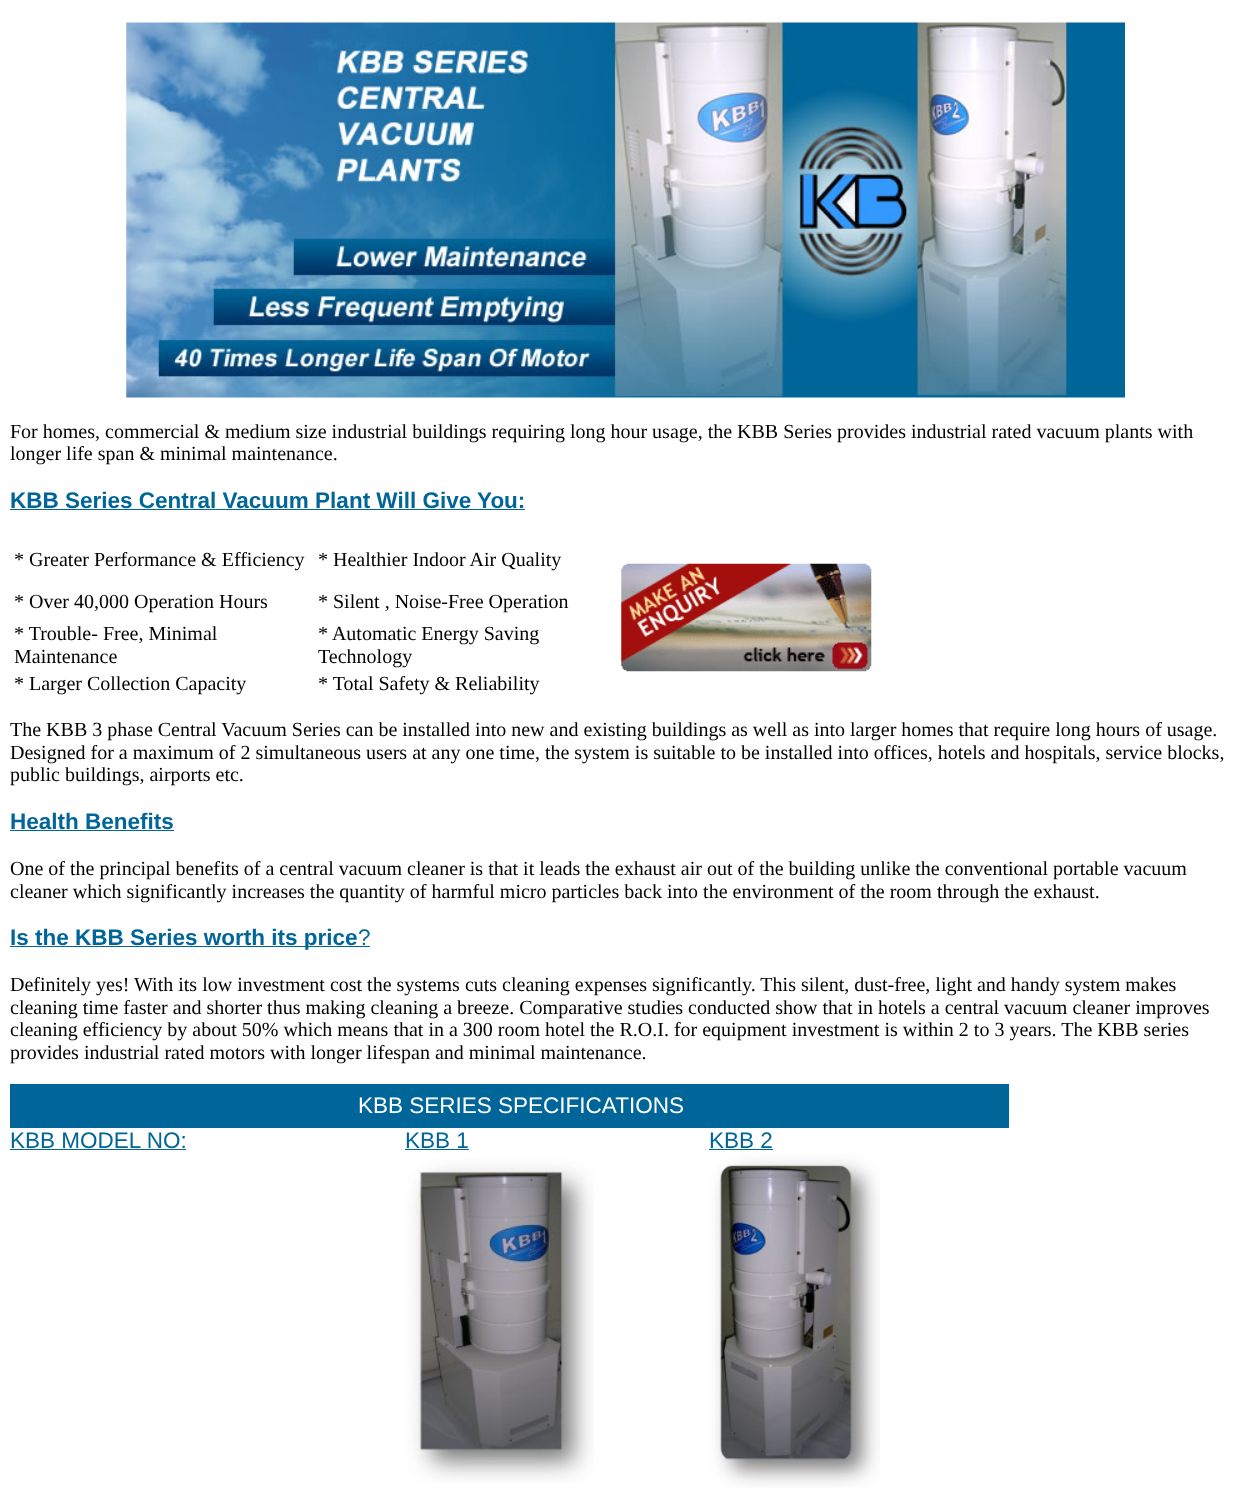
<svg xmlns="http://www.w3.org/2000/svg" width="1249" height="1488">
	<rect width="100%" height="100%" fill="#FFFFFF" />
	<image x="126" y="22" width="999" height="376" href="assets/img1.png" />
	<g font-family="Liberation Serif" font-size="20" fill="#000000">
		<text x="10" y="438">For homes, commercial &amp; medium size industrial buildings requiring long hour usage, the KBB Series provides industrial rated vacuum plants with</text>
		<text x="10" y="460">longer life span &amp; minimal maintenance.</text>
	</g>
	<text x="10" y="508" font-family="Liberation Sans" font-size="22.5" font-weight="700" fill="#006599">KBB Series Central Vacuum Plant Will Give You:</text>
	<rect x="10" y="509" width="515" height="1" fill="#006599" />
	<g font-family="Liberation Serif" font-size="20" fill="#000000">
		<text x="14" y="566">* Greater Performance &amp; Efficiency</text>
		<text x="318" y="566">* Healthier Indoor Air Quality</text>
	</g>
	<image x="621" y="563" width="251" height="109" href="assets/img2.png" />
	<g font-family="Liberation Serif" font-size="20" fill="#000000">
		<text x="14" y="608">* Over 40,000 Operation Hours</text>
		<text x="318" y="608">* Silent , Noise-Free Operation</text>
		<text x="14" y="640">* Trouble- Free, Minimal</text>
		<text x="14" y="663">Maintenance</text>
		<text x="318" y="640">* Automatic Energy Saving</text>
		<text x="318" y="663">Technology</text>
		<text x="14" y="690">* Larger Collection Capacity</text>
		<text x="318" y="690">* Total Safety &amp; Reliability</text>
		<text x="10" y="736">The KBB 3 phase Central Vacuum Series can be installed into new and existing buildings as well as into larger homes that require long hours of usage.</text>
		<text x="10" y="759">Designed for a maximum of 2 simultaneous users at any one time, the system is suitable to be installed into offices, hotels and hospitals, service blocks,</text>
		<text x="10" y="781">public buildings, airports etc.</text>
	</g>
	<text x="10" y="829" font-family="Liberation Sans" font-size="22.5" font-weight="700" fill="#006599">Health Benefits</text>
	<rect x="10" y="830" width="164" height="1" fill="#006599" />
	<g font-family="Liberation Serif" font-size="20" fill="#000000">
		<text x="10" y="875">One of the principal benefits of a central vacuum cleaner is that it leads the exhaust air out of the building unlike the conventional portable vacuum</text>
		<text x="10" y="898">cleaner which significantly increases the quantity of harmful micro particles back into the environment of the room through the exhaust.</text>
	</g>
	<rect x="10" y="946" width="360" height="1" fill="#006599" />
	<text x="10" y="945" font-family="Liberation Sans" font-size="22.5" font-weight="700" fill="#006599">Is the KBB Series worth its price</text>
	<text x="358" y="945" font-family="Liberation Sans" font-size="22.5" fill="#006599">?</text>
	<g font-family="Liberation Serif" font-size="20" fill="#000000">
		<text x="10" y="991">Definitely yes! With its low investment cost the systems cuts cleaning expenses significantly. This silent, dust-free, light and handy system makes</text>
		<text x="10" y="1014">cleaning time faster and shorter thus making cleaning a breeze. Comparative studies conducted show that in hotels a central vacuum cleaner improves</text>
		<text x="10" y="1036">cleaning efficiency by about 50% which means that in a 300 room hotel the R.O.I. for equipment investment is within 2 to 3 years. The KBB series</text>
		<text x="10" y="1059">provides industrial rated motors with longer lifespan and minimal maintenance.</text>
	</g>
	<rect x="10" y="1084" width="999" height="44" fill="#006699" />
	<text x="358" y="1113" font-family="Liberation Sans" font-size="22.5" fill="#FFFFFF">KBB SERIES SPECIFICATIONS</text>
	<text x="10" y="1148" font-family="Liberation Sans" font-size="22.5" fill="#006599">KBB MODEL NO:</text>
	<rect x="10" y="1149" width="176" height="1" fill="#006599" />
	<text x="405" y="1148" font-family="Liberation Sans" font-size="22.5" fill="#006599">KBB 1</text>
	<rect x="405" y="1149" width="64" height="1" fill="#006599" />
	<text x="709" y="1148" font-family="Liberation Sans" font-size="22.5" fill="#006599">KBB 2</text>
	<rect x="709" y="1149" width="64" height="1" fill="#006599" />
	<image x="407" y="1159" width="187" height="323" href="assets/img3.png" />
	<image x="710" y="1154" width="170" height="334" href="assets/img4.png" />
</svg>
